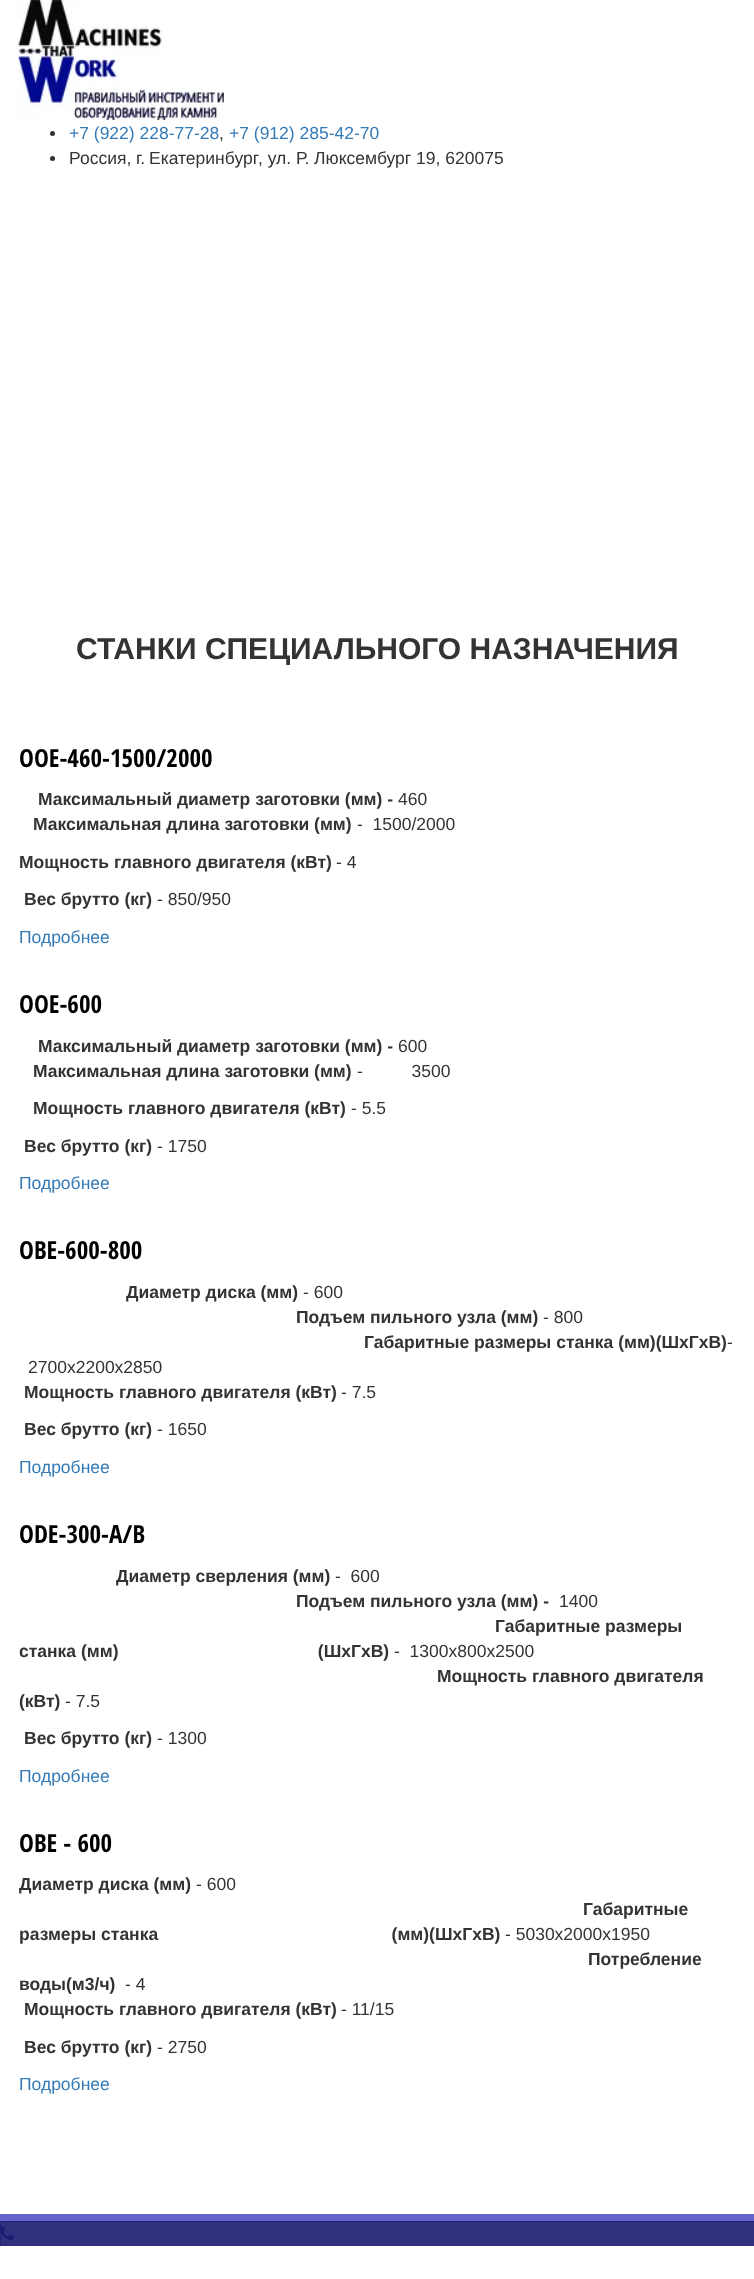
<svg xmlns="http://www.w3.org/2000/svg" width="754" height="2279">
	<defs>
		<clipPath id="clip1"><rect x="0" y="0" width="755" height="2246" /></clipPath>
	</defs>
	<rect width="100%" height="100%" fill="#FFFFFF" />
	<image x="18" y="0" width="206" height="120" href="assets/img1.png" />
	<circle cx="52.5" cy="133.5" r="2.5" fill="#333333" />
	<g font-family="Liberation Sans" font-size="17.5" fill="#337AB7">
		<text x="69" y="139">+7 (922) 228-77-28</text>
		<text x="229" y="139">+7 (912) 285-42-70</text>
	</g>
	<text x="219" y="139" font-family="Liberation Sans" font-size="17.5" fill="#333333">,</text>
	<circle cx="52.5" cy="158.5" r="2.5" fill="#333333" />
	<g font-family="Liberation Sans" font-size="17.5" fill="#333333">
		<text x="69" y="164">Россия,</text>
		<text x="136" y="164" word-spacing="-1">г. Екатеринбург</text>
		<text x="258" y="164">, ул. Р. Люксембург 19, 620075</text>
	</g>
	<text x="76" y="659" font-family="Liberation Sans" font-size="30" font-weight="700" fill="#333333">СТАНКИ СПЕЦИАЛЬНОГО НАЗНАЧЕНИЯ</text>
	<text x="19" y="767" font-family="Open Sans Condensed" font-size="25" font-weight="700" fill="#000000">OOE-460-1500/2000</text>
	<text x="38" y="805" font-family="Liberation Sans" font-size="17.5" font-weight="700" fill="#333333">Максимальный диаметр заготовки (мм) -</text>
	<text x="398" y="805" font-family="Liberation Sans" font-size="17.5" fill="#333333">460</text>
	<text x="33" y="830" font-family="Liberation Sans" font-size="17.5" font-weight="700" fill="#333333">Максимальная длина заготовки (мм)</text>
	<text x="357" y="830" font-family="Liberation Sans" font-size="17.5" fill="#333333" xml:space="preserve">-  1500/2000</text>
	<text x="19" y="868" font-family="Liberation Sans" font-size="17.5" font-weight="700" fill="#333333">Мощность главного двигателя (кВт)</text>
	<text x="336" y="868" font-family="Liberation Sans" font-size="17.5" fill="#333333">- 4</text>
	<text x="24" y="905" font-family="Liberation Sans" font-size="17.5" font-weight="700" fill="#333333">Вес брутто (кг)</text>
	<text x="157" y="905" font-family="Liberation Sans" font-size="17.5" fill="#333333">- 850/950</text>
	<text x="19" y="943" font-family="Liberation Sans" font-size="17.5" fill="#337AB7">Подробнее</text>
	<text x="19" y="1013" font-family="Open Sans Condensed" font-size="25" font-weight="700" fill="#000000">OOE-600</text>
	<text x="38" y="1052" font-family="Liberation Sans" font-size="17.5" font-weight="700" fill="#333333">Максимальный диаметр заготовки (мм) -</text>
	<text x="398" y="1052" font-family="Liberation Sans" font-size="17.5" fill="#333333">600</text>
	<text x="33" y="1077" font-family="Liberation Sans" font-size="17.5" font-weight="700" fill="#333333">Максимальная длина заготовки (мм)</text>
	<text x="357" y="1077" font-family="Liberation Sans" font-size="17.5" fill="#333333" xml:space="preserve">-          3500</text>
	<text x="33" y="1114" font-family="Liberation Sans" font-size="17.5" font-weight="700" fill="#333333">Мощность главного двигателя (кВт)</text>
	<text x="351" y="1114" font-family="Liberation Sans" font-size="17.5" fill="#333333">- 5.5</text>
	<text x="24" y="1152" font-family="Liberation Sans" font-size="17.5" font-weight="700" fill="#333333">Вес брутто (кг)</text>
	<text x="157" y="1152" font-family="Liberation Sans" font-size="17.5" fill="#333333">- 1750</text>
	<text x="19" y="1189" font-family="Liberation Sans" font-size="17.5" fill="#337AB7">Подробнее</text>
	<text x="19" y="1259" font-family="Open Sans Condensed" font-size="25" font-weight="700" fill="#000000">OBE-600-800</text>
	<text x="126" y="1298" font-family="Liberation Sans" font-size="17.5" font-weight="700" fill="#333333">Диаметр диска (мм)</text>
	<text x="303" y="1298" font-family="Liberation Sans" font-size="17.5" fill="#333333">- 600</text>
	<text x="296" y="1323" font-family="Liberation Sans" font-size="17.5" font-weight="700" fill="#333333">Подъем пильного узла (мм)</text>
	<text x="543" y="1323" font-family="Liberation Sans" font-size="17.5" fill="#333333">- 800</text>
	<text x="364" y="1348" font-family="Liberation Sans" font-size="17.5" font-weight="700" fill="#333333">Габаритные размеры станка (мм)(ШхГхВ)</text>
	<g font-family="Liberation Sans" font-size="17.5" fill="#333333">
		<text x="727" y="1348">-</text>
		<text x="28" y="1373">2700х2200х2850</text>
	</g>
	<text x="24" y="1398" font-family="Liberation Sans" font-size="17.5" font-weight="700" fill="#333333">Мощность главного двигателя (кВт)</text>
	<text x="341" y="1398" font-family="Liberation Sans" font-size="17.5" fill="#333333">- 7.5</text>
	<text x="24" y="1435" font-family="Liberation Sans" font-size="17.5" font-weight="700" fill="#333333">Вес брутто (кг)</text>
	<text x="157" y="1435" font-family="Liberation Sans" font-size="17.5" fill="#333333">- 1650</text>
	<text x="19" y="1473" font-family="Liberation Sans" font-size="17.5" fill="#337AB7">Подробнее</text>
	<text x="19" y="1543" font-family="Open Sans Condensed" font-size="25" font-weight="700" fill="#000000">ODE-300-A/B</text>
	<text x="116" y="1582" font-family="Liberation Sans" font-size="17.5" font-weight="700" fill="#333333">Диаметр сверления (мм)</text>
	<text x="335" y="1582" font-family="Liberation Sans" font-size="17.5" fill="#333333" xml:space="preserve">-  600</text>
	<text x="296" y="1607" font-family="Liberation Sans" font-size="17.5" font-weight="700" fill="#333333">Подъем пильного узла (мм) -</text>
	<text x="559" y="1607" font-family="Liberation Sans" font-size="17.5" fill="#333333">1400</text>
	<g font-family="Liberation Sans" font-size="17.5" font-weight="700" fill="#333333">
		<text x="495" y="1632">Габаритные размеры</text>
		<text x="19" y="1657" xml:space="preserve">станка (мм)                                         (ШхГхВ)</text>
	</g>
	<text x="394" y="1657" font-family="Liberation Sans" font-size="17.5" fill="#333333" xml:space="preserve">-  1300х800х2500</text>
	<g font-family="Liberation Sans" font-size="17.5" font-weight="700" fill="#333333">
		<text x="437" y="1682">Мощность главного двигателя</text>
		<text x="19" y="1707">(кВт)</text>
	</g>
	<text x="65" y="1707" font-family="Liberation Sans" font-size="17.5" fill="#333333">- 7.5</text>
	<text x="24" y="1744" font-family="Liberation Sans" font-size="17.5" font-weight="700" fill="#333333">Вес брутто (кг)</text>
	<text x="157" y="1744" font-family="Liberation Sans" font-size="17.5" fill="#333333">- 1300</text>
	<text x="19" y="1782" font-family="Liberation Sans" font-size="17.5" fill="#337AB7">Подробнее</text>
	<text x="19" y="1852" font-family="Open Sans Condensed" font-size="25" font-weight="700" fill="#000000">OBE - 600</text>
	<text x="19" y="1890" font-family="Liberation Sans" font-size="17.5" font-weight="700" fill="#333333">Диаметр диска (мм)</text>
	<text x="196" y="1890" font-family="Liberation Sans" font-size="17.5" fill="#333333">- 600</text>
	<g font-family="Liberation Sans" font-size="17.5" font-weight="700" fill="#333333">
		<text x="583" y="1915">Габаритные</text>
		<text x="19" y="1940" xml:space="preserve">размеры станка                                                (мм)(ШхГхВ)</text>
	</g>
	<text x="505" y="1940" font-family="Liberation Sans" font-size="17.5" fill="#333333">- 5030х2000х1950</text>
	<g font-family="Liberation Sans" font-size="17.5" font-weight="700" fill="#333333">
		<text x="588" y="1965">Потребление</text>
		<text x="19" y="1990">воды(м3/ч)</text>
	</g>
	<text x="125" y="1990" font-family="Liberation Sans" font-size="17.5" fill="#333333">- 4</text>
	<text x="24" y="2015" font-family="Liberation Sans" font-size="17.5" font-weight="700" fill="#333333">Мощность главного двигателя (кВт)</text>
	<text x="341" y="2015" font-family="Liberation Sans" font-size="17.5" fill="#333333">- 11/15</text>
	<text x="24" y="2053" font-family="Liberation Sans" font-size="17.5" font-weight="700" fill="#333333">Вес брутто (кг)</text>
	<text x="157" y="2053" font-family="Liberation Sans" font-size="17.5" fill="#333333">- 2750</text>
	<text x="19" y="2090" font-family="Liberation Sans" font-size="17.5" fill="#337AB7">Подробнее</text>
	<g clip-path="url(#clip1)">
		<rect x="-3" y="2218" width="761" height="32" fill="none" stroke="#6464CB" stroke-width="8" />
	</g>
	<rect x="0" y="2221" width="754" height="25" fill="#191970" fill-opacity="0.9" />
	<image x="0" y="2226" width="14" height="14" href="assets/img2.png" />
</svg>
